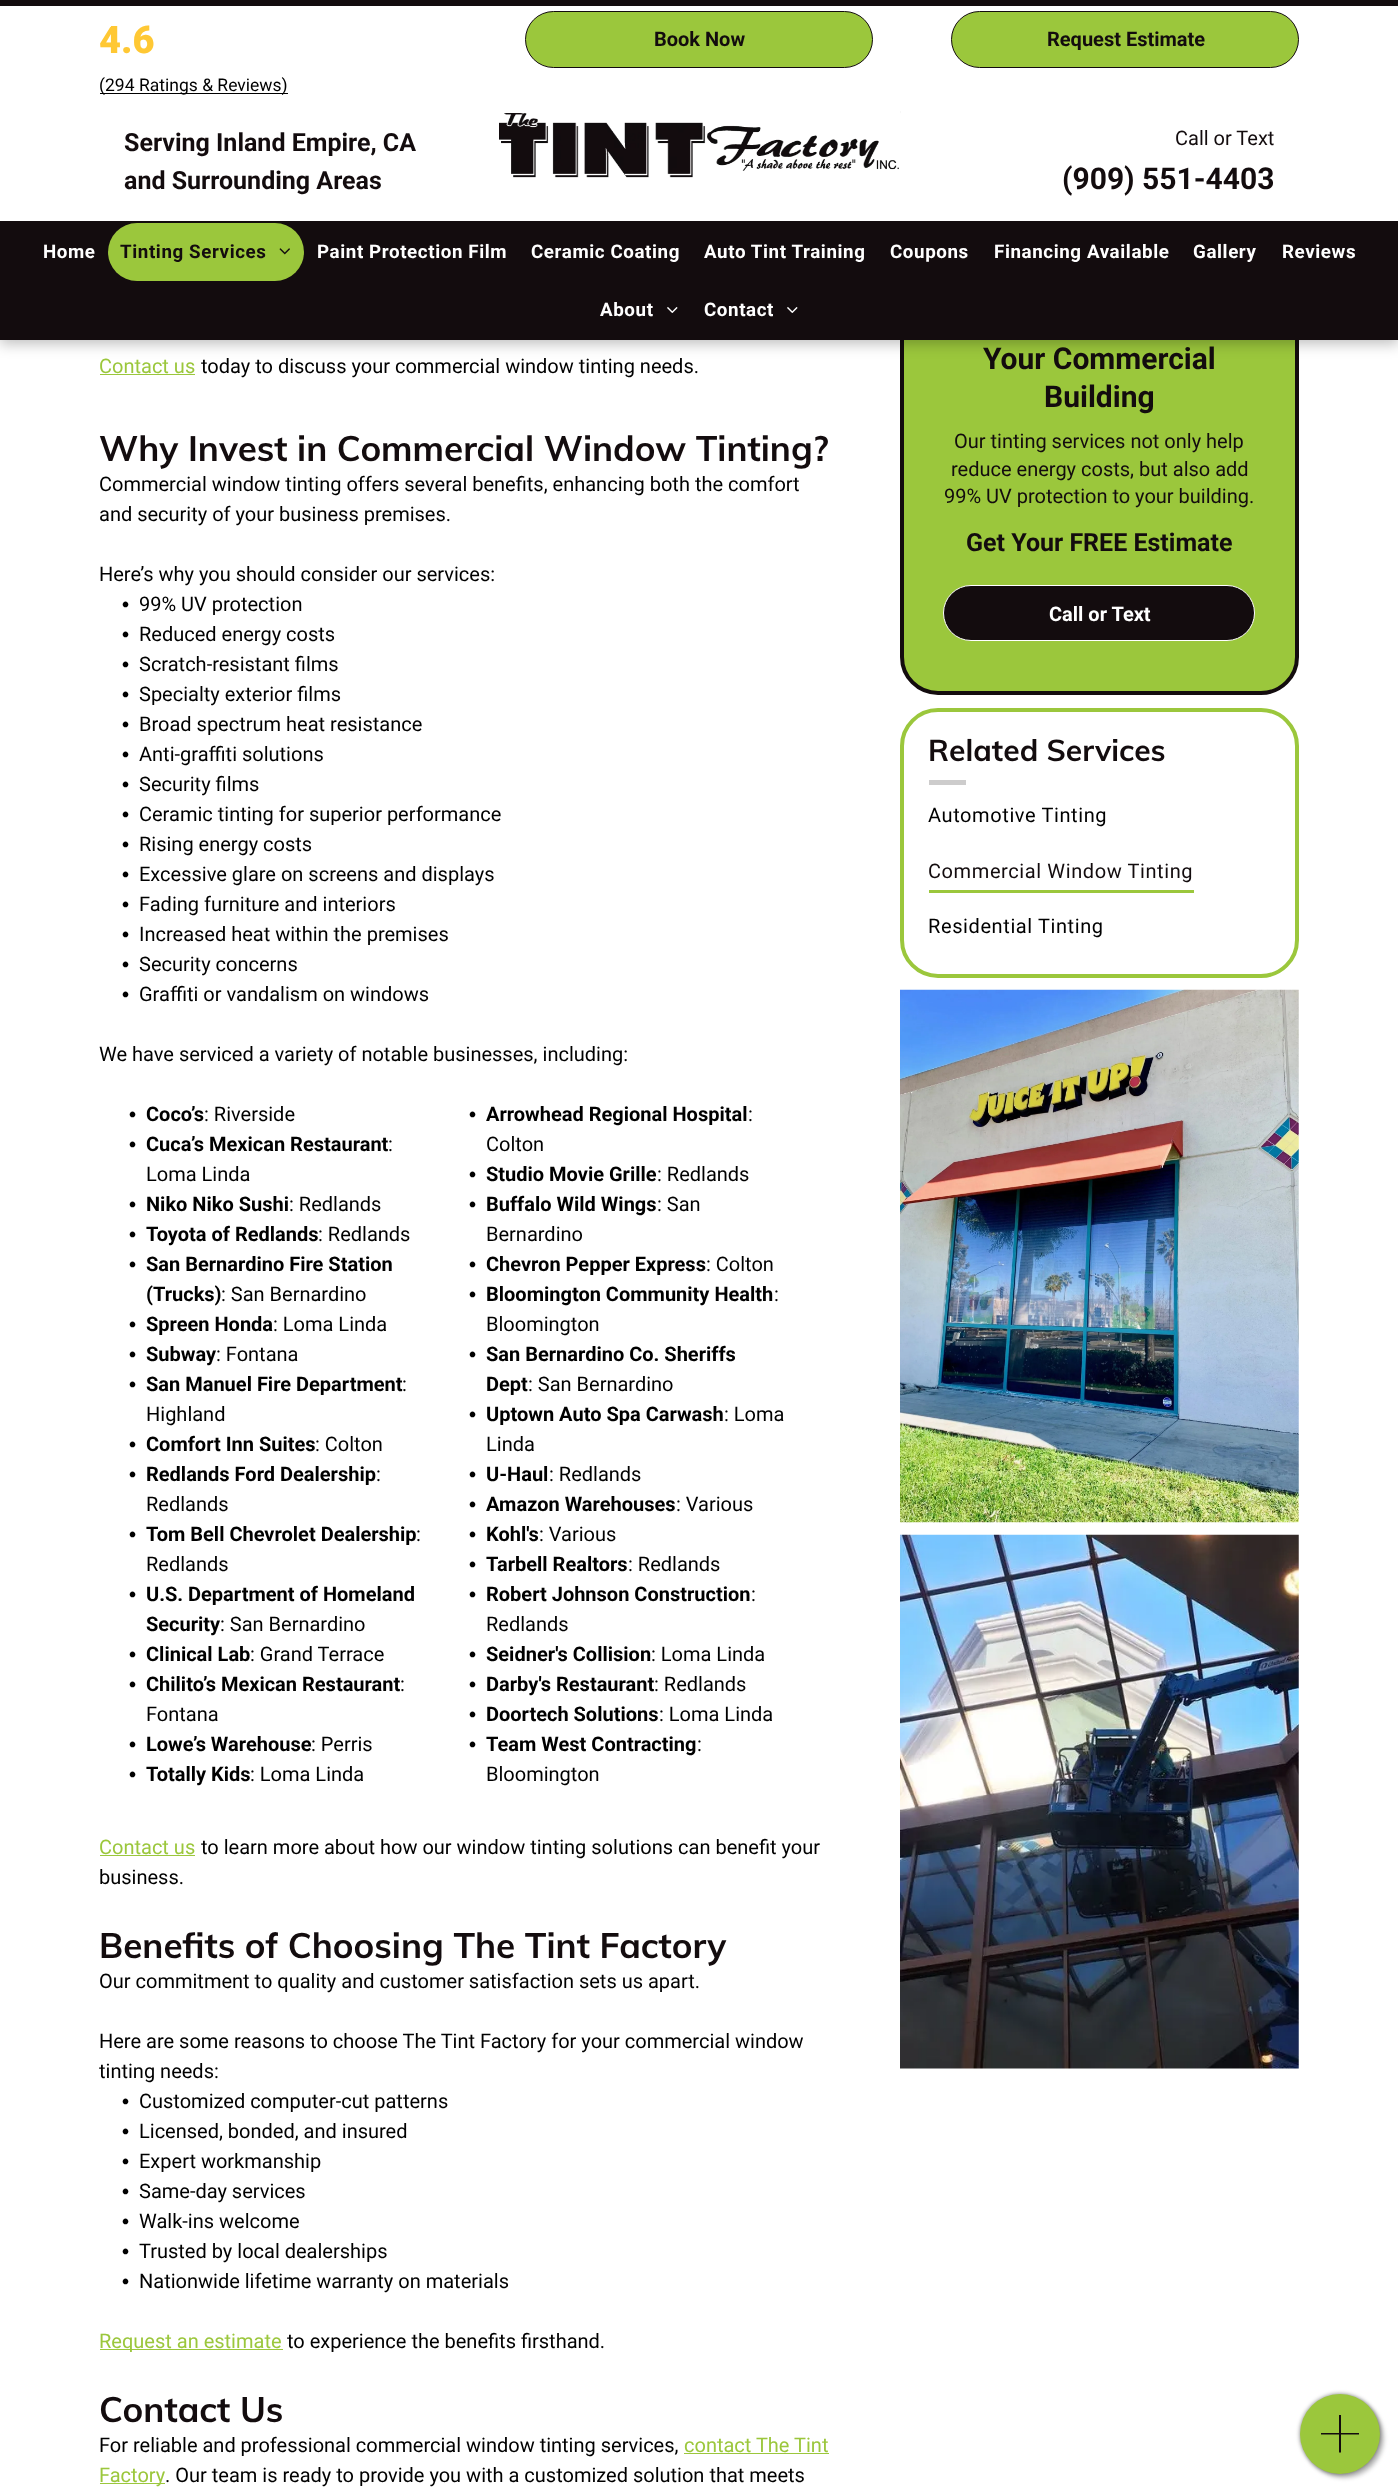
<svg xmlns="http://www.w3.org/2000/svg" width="1398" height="2492">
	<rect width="100%" height="100%" fill="#FFFFFF" />
	<rect x="902" y="153" width="395" height="540" rx="36" fill="#9BC73C" stroke="#130C0E" stroke-width="4" />
	<rect x="0" y="4" width="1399" height="340" fill="#000000" fill-opacity="0.25" filter="blur(7px)" />
	<rect x="0" y="6" width="1398" height="215" fill="#FFFFFF" />
	<rect x="0" y="0" width="1398" height="6" fill="#130C0E" />
	<text x="99" y="53" font-family="Roboto" font-size="38" font-weight="900" fill="#FFC834">4.6</text>
	<rect x="100" y="93" width="5" height="1" fill="#000000" />
	<text x="99" y="91" font-family="Roboto" font-size="17.5" fill="#000000">(294</text>
	<rect x="105" y="93" width="183" height="1" fill="#000000" />
	<text x="139" y="91" font-family="Roboto" font-size="17.5" fill="#000000">Ratings &amp; Reviews)</text>
	<rect x="525.5" y="11.5" width="347" height="56" rx="28" fill="#9BC73C" stroke="#130C0E" />
	<text x="654" y="46" font-family="Roboto" font-size="20" font-weight="700" fill="#130C0E">Book Now</text>
	<rect x="951.5" y="11.5" width="347" height="56" rx="28" fill="#9BC73C" stroke="#130C0E" />
	<text x="1047" y="46" font-family="Roboto" font-size="20" font-weight="700" fill="#130C0E">Request Estimate</text>
	<g font-family="Roboto" font-size="25" font-weight="700" fill="#130C0E">
		<text x="124" y="151">Serving Inland Empire, CA</text>
		<text x="124" y="189">and Surrounding Areas</text>
	</g>
	<image x="499" y="111" width="402" height="67" href="assets/img1.png" />
	<text x="1175" y="145" font-family="Roboto" font-size="20" fill="#130C0E">Call or Text</text>
	<text x="1062" y="189" font-family="Roboto" font-size="30" font-weight="700" fill="#130C0E">(909) 551-4403</text>
	<rect x="0" y="221" width="1398" height="119" fill="#130C0E" />
	<text x="43" y="258" font-family="Roboto" font-size="18.75" font-weight="700" letter-spacing="0.6" fill="#FFFFFF">Home</text>
	<rect x="108" y="223" width="196" height="58" rx="29" fill="#9BC73C" />
	<text x="120" y="258" font-family="Roboto" font-size="18.75" font-weight="700" letter-spacing="0.6" fill="#130C0E">Tinting Services</text>
	<image x="279" y="248" width="11" height="7" href="assets/img2.png" />
	<g font-family="Roboto" font-size="18.75" font-weight="700" letter-spacing="0.6" fill="#FFFFFF">
		<text x="317" y="258">Paint Protection Film</text>
		<text x="531" y="258">Ceramic Coating</text>
		<text x="704" y="258">Auto Tint Training</text>
		<text x="890" y="258">Coupons</text>
		<text x="994" y="258">Financing Available</text>
		<text x="1193" y="258">Gallery</text>
		<text x="1282" y="258">Reviews</text>
		<text x="600" y="316">About</text>
	</g>
	<image x="667" y="307" width="11" height="6" href="assets/img3.png" />
	<text x="704" y="316" font-family="Roboto" font-size="18.75" font-weight="700" letter-spacing="0.6" fill="#FFFFFF">Contact</text>
	<image x="787" y="307" width="11" height="6" href="assets/img3.png" />
	<text x="99" y="373" font-family="Roboto" font-size="20" fill="#9BC73C">Contact us</text>
	<rect x="100" y="374" width="95" height="1" fill="#9BC73C" />
	<text x="201" y="373" font-family="Roboto" font-size="20" fill="#000000">today to discuss your commercial window tinting needs.</text>
	<text x="99" y="461" font-family="Muli" font-size="35" font-weight="700" fill="#130C0E">Why Invest in Commercial Window Tinting?</text>
	<g font-family="Roboto" font-size="20" fill="#000000">
		<text x="99" y="491">Commercial window tinting offers several benefits, enhancing both the comfort</text>
		<text x="99" y="521">and security of your business premises.</text>
		<text x="99" y="581">Here’s why you should consider our services:</text>
	</g>
	<text x="122" y="611" font-family="Liberation Sans" font-size="20" font-weight="700" fill="#000000">•</text>
	<text x="139" y="611" font-family="Roboto" font-size="20" fill="#000000">99% UV protection</text>
	<text x="122" y="641" font-family="Liberation Sans" font-size="20" font-weight="700" fill="#000000">•</text>
	<text x="139" y="641" font-family="Roboto" font-size="20" fill="#000000">Reduced energy costs</text>
	<text x="122" y="671" font-family="Liberation Sans" font-size="20" font-weight="700" fill="#000000">•</text>
	<text x="139" y="671" font-family="Roboto" font-size="20" fill="#000000">Scratch-resistant films</text>
	<text x="122" y="701" font-family="Liberation Sans" font-size="20" font-weight="700" fill="#000000">•</text>
	<text x="139" y="701" font-family="Roboto" font-size="20" fill="#000000">Specialty exterior films</text>
	<text x="122" y="731" font-family="Liberation Sans" font-size="20" font-weight="700" fill="#000000">•</text>
	<text x="139" y="731" font-family="Roboto" font-size="20" fill="#000000">Broad spectrum heat resistance</text>
	<text x="122" y="761" font-family="Liberation Sans" font-size="20" font-weight="700" fill="#000000">•</text>
	<text x="139" y="761" font-family="Roboto" font-size="20" fill="#000000">Anti-graffiti solutions</text>
	<text x="122" y="791" font-family="Liberation Sans" font-size="20" font-weight="700" fill="#000000">•</text>
	<text x="139" y="791" font-family="Roboto" font-size="20" fill="#000000">Security films</text>
	<text x="122" y="821" font-family="Liberation Sans" font-size="20" font-weight="700" fill="#000000">•</text>
	<text x="139" y="821" font-family="Roboto" font-size="20" fill="#000000">Ceramic tinting for superior performance</text>
	<text x="122" y="851" font-family="Liberation Sans" font-size="20" font-weight="700" fill="#000000">•</text>
	<text x="139" y="851" font-family="Roboto" font-size="20" fill="#000000">Rising energy costs</text>
	<text x="122" y="881" font-family="Liberation Sans" font-size="20" font-weight="700" fill="#000000">•</text>
	<text x="139" y="881" font-family="Roboto" font-size="20" fill="#000000">Excessive glare on screens and displays</text>
	<text x="122" y="911" font-family="Liberation Sans" font-size="20" font-weight="700" fill="#000000">•</text>
	<text x="139" y="911" font-family="Roboto" font-size="20" fill="#000000">Fading furniture and interiors</text>
	<text x="122" y="941" font-family="Liberation Sans" font-size="20" font-weight="700" fill="#000000">•</text>
	<text x="139" y="941" font-family="Roboto" font-size="20" fill="#000000">Increased heat within the premises</text>
	<text x="122" y="971" font-family="Liberation Sans" font-size="20" font-weight="700" fill="#000000">•</text>
	<text x="139" y="971" font-family="Roboto" font-size="20" fill="#000000">Security concerns</text>
	<text x="122" y="1001" font-family="Liberation Sans" font-size="20" font-weight="700" fill="#000000">•</text>
	<g font-family="Roboto" font-size="20" fill="#000000">
		<text x="139" y="1001">Graffiti or vandalism on windows</text>
		<text x="99" y="1061">We have serviced a variety of notable businesses, including:</text>
	</g>
	<text x="129" y="1121" font-family="Liberation Sans" font-size="20" font-weight="700" fill="#000000">•</text>
	<text x="146" y="1121" font-family="Roboto" font-size="20" font-weight="700" fill="#000000">Coco’s</text>
	<text x="204" y="1121" font-family="Roboto" font-size="20" fill="#000000">: Riverside</text>
	<text x="129" y="1151" font-family="Liberation Sans" font-size="20" font-weight="700" fill="#000000">•</text>
	<text x="146" y="1151" font-family="Roboto" font-size="20" font-weight="700" fill="#000000">Cuca’s Mexican Restaurant</text>
	<g font-family="Roboto" font-size="20" fill="#000000">
		<text x="388" y="1151">:</text>
		<text x="146" y="1181">Loma Linda</text>
	</g>
	<text x="129" y="1211" font-family="Liberation Sans" font-size="20" font-weight="700" fill="#000000">•</text>
	<text x="146" y="1211" font-family="Roboto" font-size="20" font-weight="700" fill="#000000">Niko Niko Sushi</text>
	<text x="289" y="1211" font-family="Roboto" font-size="20" fill="#000000">: Redlands</text>
	<text x="129" y="1241" font-family="Liberation Sans" font-size="20" font-weight="700" fill="#000000">•</text>
	<text x="146" y="1241" font-family="Roboto" font-size="20" font-weight="700" fill="#000000">Toyota of Redlands</text>
	<text x="318" y="1241" font-family="Roboto" font-size="20" fill="#000000">: Redlands</text>
	<text x="129" y="1271" font-family="Liberation Sans" font-size="20" font-weight="700" fill="#000000">•</text>
	<g font-family="Roboto" font-size="20" font-weight="700" fill="#000000">
		<text x="146" y="1271">San Bernardino Fire Station</text>
		<text x="146" y="1301">(Trucks)</text>
	</g>
	<text x="221" y="1301" font-family="Roboto" font-size="20" fill="#000000">: San Bernardino</text>
	<text x="129" y="1331" font-family="Liberation Sans" font-size="20" font-weight="700" fill="#000000">•</text>
	<text x="146" y="1331" font-family="Roboto" font-size="20" font-weight="700" fill="#000000">Spreen Honda</text>
	<text x="273" y="1331" font-family="Roboto" font-size="20" fill="#000000">: Loma Linda</text>
	<text x="129" y="1361" font-family="Liberation Sans" font-size="20" font-weight="700" fill="#000000">•</text>
	<text x="146" y="1361" font-family="Roboto" font-size="20" font-weight="700" fill="#000000">Subway</text>
	<text x="216" y="1361" font-family="Roboto" font-size="20" fill="#000000">: Fontana</text>
	<text x="129" y="1391" font-family="Liberation Sans" font-size="20" font-weight="700" fill="#000000">•</text>
	<text x="146" y="1391" font-family="Roboto" font-size="20" font-weight="700" fill="#000000">San Manuel Fire Department</text>
	<g font-family="Roboto" font-size="20" fill="#000000">
		<text x="402" y="1391">:</text>
		<text x="146" y="1421">Highland</text>
	</g>
	<text x="129" y="1451" font-family="Liberation Sans" font-size="20" font-weight="700" fill="#000000">•</text>
	<text x="146" y="1451" font-family="Roboto" font-size="20" font-weight="700" fill="#000000">Comfort Inn Suites</text>
	<text x="315" y="1451" font-family="Roboto" font-size="20" fill="#000000">: Colton</text>
	<text x="129" y="1481" font-family="Liberation Sans" font-size="20" font-weight="700" fill="#000000">•</text>
	<text x="146" y="1481" font-family="Roboto" font-size="20" font-weight="700" fill="#000000">Redlands Ford Dealership</text>
	<g font-family="Roboto" font-size="20" fill="#000000">
		<text x="376" y="1481">:</text>
		<text x="146" y="1511">Redlands</text>
	</g>
	<text x="129" y="1541" font-family="Liberation Sans" font-size="20" font-weight="700" fill="#000000">•</text>
	<text x="146" y="1541" font-family="Roboto" font-size="20" font-weight="700" fill="#000000">Tom Bell Chevrolet Dealership</text>
	<g font-family="Roboto" font-size="20" fill="#000000">
		<text x="416" y="1541">:</text>
		<text x="146" y="1571">Redlands</text>
	</g>
	<text x="129" y="1601" font-family="Liberation Sans" font-size="20" font-weight="700" fill="#000000">•</text>
	<g font-family="Roboto" font-size="20" font-weight="700" fill="#000000">
		<text x="146" y="1601">U.S. Department of Homeland</text>
		<text x="146" y="1631">Security</text>
	</g>
	<text x="220" y="1631" font-family="Roboto" font-size="20" fill="#000000">: San Bernardino</text>
	<text x="129" y="1661" font-family="Liberation Sans" font-size="20" font-weight="700" fill="#000000">•</text>
	<text x="146" y="1661" font-family="Roboto" font-size="20" font-weight="700" fill="#000000">Clinical Lab</text>
	<text x="250" y="1661" font-family="Roboto" font-size="20" fill="#000000">: Grand Terrace</text>
	<text x="129" y="1691" font-family="Liberation Sans" font-size="20" font-weight="700" fill="#000000">•</text>
	<text x="146" y="1691" font-family="Roboto" font-size="20" font-weight="700" fill="#000000">Chilito’s Mexican Restaurant</text>
	<g font-family="Roboto" font-size="20" fill="#000000">
		<text x="400" y="1691">:</text>
		<text x="146" y="1721">Fontana</text>
	</g>
	<text x="129" y="1751" font-family="Liberation Sans" font-size="20" font-weight="700" fill="#000000">•</text>
	<text x="146" y="1751" font-family="Roboto" font-size="20" font-weight="700" fill="#000000">Lowe’s Warehouse</text>
	<text x="311" y="1751" font-family="Roboto" font-size="20" fill="#000000">: Perris</text>
	<text x="129" y="1781" font-family="Liberation Sans" font-size="20" font-weight="700" fill="#000000">•</text>
	<text x="146" y="1781" font-family="Roboto" font-size="20" font-weight="700" fill="#000000">Totally Kids</text>
	<text x="250" y="1781" font-family="Roboto" font-size="20" fill="#000000">: Loma Linda</text>
	<text x="469" y="1121" font-family="Liberation Sans" font-size="20" font-weight="700" fill="#000000">•</text>
	<text x="486" y="1121" font-family="Roboto" font-size="20" font-weight="700" fill="#000000">Arrowhead Regional Hospital</text>
	<g font-family="Roboto" font-size="20" fill="#000000">
		<text x="748" y="1121">:</text>
		<text x="486" y="1151">Colton</text>
	</g>
	<text x="469" y="1181" font-family="Liberation Sans" font-size="20" font-weight="700" fill="#000000">•</text>
	<text x="486" y="1181" font-family="Roboto" font-size="20" font-weight="700" fill="#000000">Studio Movie Grille</text>
	<text x="657" y="1181" font-family="Roboto" font-size="20" fill="#000000">: Redlands</text>
	<text x="469" y="1211" font-family="Liberation Sans" font-size="20" font-weight="700" fill="#000000">•</text>
	<text x="486" y="1211" font-family="Roboto" font-size="20" font-weight="700" fill="#000000">Buffalo Wild Wings</text>
	<g font-family="Roboto" font-size="20" fill="#000000">
		<text x="657" y="1211">: San</text>
		<text x="486" y="1241">Bernardino</text>
	</g>
	<text x="469" y="1271" font-family="Liberation Sans" font-size="20" font-weight="700" fill="#000000">•</text>
	<text x="486" y="1271" font-family="Roboto" font-size="20" font-weight="700" fill="#000000">Chevron Pepper Express</text>
	<text x="706" y="1271" font-family="Roboto" font-size="20" fill="#000000">: Colton</text>
	<text x="469" y="1301" font-family="Liberation Sans" font-size="20" font-weight="700" fill="#000000">•</text>
	<text x="486" y="1301" font-family="Roboto" font-size="20" font-weight="700" fill="#000000">Bloomington Community Health</text>
	<g font-family="Roboto" font-size="20" fill="#000000">
		<text x="774" y="1301">:</text>
		<text x="486" y="1331">Bloomington</text>
	</g>
	<text x="469" y="1361" font-family="Liberation Sans" font-size="20" font-weight="700" fill="#000000">•</text>
	<g font-family="Roboto" font-size="20" font-weight="700" fill="#000000">
		<text x="486" y="1361">San Bernardino Co. Sheriffs</text>
		<text x="486" y="1391">Dept</text>
	</g>
	<text x="528" y="1391" font-family="Roboto" font-size="20" fill="#000000">: San Bernardino</text>
	<text x="469" y="1421" font-family="Liberation Sans" font-size="20" font-weight="700" fill="#000000">•</text>
	<text x="486" y="1421" font-family="Roboto" font-size="20" font-weight="700" fill="#000000">Uptown Auto Spa Carwash</text>
	<g font-family="Roboto" font-size="20" fill="#000000">
		<text x="724" y="1421">: Loma</text>
		<text x="486" y="1451">Linda</text>
	</g>
	<text x="469" y="1481" font-family="Liberation Sans" font-size="20" font-weight="700" fill="#000000">•</text>
	<text x="486" y="1481" font-family="Roboto" font-size="20" font-weight="700" fill="#000000">U-Haul</text>
	<text x="549" y="1481" font-family="Roboto" font-size="20" fill="#000000">: Redlands</text>
	<text x="469" y="1511" font-family="Liberation Sans" font-size="20" font-weight="700" fill="#000000">•</text>
	<text x="486" y="1511" font-family="Roboto" font-size="20" font-weight="700" fill="#000000">Amazon Warehouses</text>
	<text x="676" y="1511" font-family="Roboto" font-size="20" fill="#000000">: Various</text>
	<text x="469" y="1541" font-family="Liberation Sans" font-size="20" font-weight="700" fill="#000000">•</text>
	<text x="486" y="1541" font-family="Roboto" font-size="20" font-weight="700" fill="#000000">Kohl's</text>
	<text x="539" y="1541" font-family="Roboto" font-size="20" fill="#000000">: Various</text>
	<text x="469" y="1571" font-family="Liberation Sans" font-size="20" font-weight="700" fill="#000000">•</text>
	<text x="486" y="1571" font-family="Roboto" font-size="20" font-weight="700" fill="#000000">Tarbell Realtors</text>
	<text x="628" y="1571" font-family="Roboto" font-size="20" fill="#000000">: Redlands</text>
	<text x="469" y="1601" font-family="Liberation Sans" font-size="20" font-weight="700" fill="#000000">•</text>
	<text x="486" y="1601" font-family="Roboto" font-size="20" font-weight="700" fill="#000000">Robert Johnson Construction</text>
	<g font-family="Roboto" font-size="20" fill="#000000">
		<text x="751" y="1601">:</text>
		<text x="486" y="1631">Redlands</text>
	</g>
	<text x="469" y="1661" font-family="Liberation Sans" font-size="20" font-weight="700" fill="#000000">•</text>
	<text x="486" y="1661" font-family="Roboto" font-size="20" font-weight="700" fill="#000000">Seidner's Collision</text>
	<text x="651" y="1661" font-family="Roboto" font-size="20" fill="#000000">: Loma Linda</text>
	<text x="469" y="1691" font-family="Liberation Sans" font-size="20" font-weight="700" fill="#000000">•</text>
	<text x="486" y="1691" font-family="Roboto" font-size="20" font-weight="700" fill="#000000">Darby's Restaurant</text>
	<text x="654" y="1691" font-family="Roboto" font-size="20" fill="#000000">: Redlands</text>
	<text x="469" y="1721" font-family="Liberation Sans" font-size="20" font-weight="700" fill="#000000">•</text>
	<text x="486" y="1721" font-family="Roboto" font-size="20" font-weight="700" fill="#000000">Doortech Solutions</text>
	<text x="659" y="1721" font-family="Roboto" font-size="20" fill="#000000">: Loma Linda</text>
	<text x="469" y="1751" font-family="Liberation Sans" font-size="20" font-weight="700" fill="#000000">•</text>
	<text x="486" y="1751" font-family="Roboto" font-size="20" font-weight="700" fill="#000000">Team West Contracting</text>
	<g font-family="Roboto" font-size="20" fill="#000000">
		<text x="697" y="1751">:</text>
		<text x="486" y="1781">Bloomington</text>
	</g>
	<text x="99" y="1854" font-family="Roboto" font-size="20" fill="#9BC73C">Contact us</text>
	<rect x="100" y="1855" width="95" height="1" fill="#9BC73C" />
	<g font-family="Roboto" font-size="20" fill="#000000">
		<text x="201" y="1854">to learn more about how our window tinting solutions can benefit your</text>
		<text x="99" y="1884">business.</text>
	</g>
	<text x="99" y="1958" font-family="Muli" font-size="35" font-weight="700" fill="#130C0E">Benefits of Choosing The Tint Factory</text>
	<g font-family="Roboto" font-size="20" fill="#000000">
		<text x="99" y="1988">Our commitment to quality and customer satisfaction sets us apart.</text>
		<text x="99" y="2048">Here are some reasons to choose The Tint Factory for your commercial window</text>
		<text x="99" y="2078">tinting needs:</text>
	</g>
	<text x="122" y="2108" font-family="Liberation Sans" font-size="20" font-weight="700" fill="#000000">•</text>
	<text x="139" y="2108" font-family="Roboto" font-size="20" fill="#000000">Customized computer-cut patterns</text>
	<text x="122" y="2138" font-family="Liberation Sans" font-size="20" font-weight="700" fill="#000000">•</text>
	<text x="139" y="2138" font-family="Roboto" font-size="20" fill="#000000">Licensed, bonded, and insured</text>
	<text x="122" y="2168" font-family="Liberation Sans" font-size="20" font-weight="700" fill="#000000">•</text>
	<text x="139" y="2168" font-family="Roboto" font-size="20" fill="#000000">Expert workmanship</text>
	<text x="122" y="2198" font-family="Liberation Sans" font-size="20" font-weight="700" fill="#000000">•</text>
	<text x="139" y="2198" font-family="Roboto" font-size="20" fill="#000000">Same-day services</text>
	<text x="122" y="2228" font-family="Liberation Sans" font-size="20" font-weight="700" fill="#000000">•</text>
	<text x="139" y="2228" font-family="Roboto" font-size="20" fill="#000000">Walk-ins welcome</text>
	<text x="122" y="2258" font-family="Liberation Sans" font-size="20" font-weight="700" fill="#000000">•</text>
	<text x="139" y="2258" font-family="Roboto" font-size="20" fill="#000000">Trusted by local dealerships</text>
	<text x="122" y="2288" font-family="Liberation Sans" font-size="20" font-weight="700" fill="#000000">•</text>
	<text x="139" y="2288" font-family="Roboto" font-size="20" fill="#000000">Nationwide lifetime warranty on materials</text>
	<rect x="100" y="2349" width="183" height="1" fill="#9BC73C" />
	<text x="99" y="2348" font-family="Roboto" font-size="20" fill="#9BC73C">Request an estimate</text>
	<text x="287" y="2348" font-family="Roboto" font-size="20" fill="#000000">to experience the benefits firsthand.</text>
	<text x="99" y="2422" font-family="Muli" font-size="35" font-weight="700" fill="#130C0E">Contact Us</text>
	<text x="99" y="2452" font-family="Roboto" font-size="20" fill="#000000">For reliable and professional commercial window tinting services,</text>
	<text x="684" y="2452" font-family="Roboto" font-size="20" fill="#9BC73C">contact The Tint</text>
	<rect x="684" y="2453" width="145" height="1" fill="#9BC73C" />
	<rect x="100" y="2483" width="65" height="1" fill="#9BC73C" />
	<text x="99" y="2482" font-family="Roboto" font-size="20" fill="#9BC73C">Factory</text>
	<text x="165" y="2482" font-family="Roboto" font-size="20" fill="#000000">. Our team is ready to provide you with a customized solution that meets</text>
	<g font-family="Roboto" font-size="30" font-weight="700" fill="#130C0E">
		<text x="983" y="369">Your Commercial</text>
		<text x="1044" y="407">Building</text>
	</g>
	<g font-family="Roboto" font-size="20" fill="#130C0E">
		<text x="954" y="448">Our tinting services not only help</text>
		<text x="951" y="476">reduce energy costs, but also add</text>
		<text x="944" y="503">99% UV protection to your building.</text>
	</g>
	<text x="966" y="551" font-family="Roboto" font-size="25" font-weight="700" fill="#130C0E">Get Your FREE Estimate</text>
	<rect x="943.5" y="585.5" width="311" height="55" rx="27.5" fill="#130C0E" stroke="#FFFFFF" />
	<text x="1049" y="621" font-family="Roboto" font-size="20" font-weight="700" fill="#FFFFFF">Call or Text</text>
	<rect x="902" y="710" width="395" height="266" rx="36" fill="none" stroke="#9BC73C" stroke-width="4" />
	<text x="928" y="761" font-family="Muli" font-size="30" font-weight="700" fill="#130C0E">Related Services</text>
	<rect x="929" y="780" width="37" height="5" fill="#CDCCCC" />
	<text x="928" y="822" font-family="Roboto" font-size="20" letter-spacing="0.6" fill="#000000">Automotive Tinting</text>
	<text x="928" y="878" font-family="Roboto" font-size="20" letter-spacing="0.6" fill="#130C0E">Commercial Window Tinting</text>
	<rect x="929" y="890" width="265" height="3" fill="#9BC73C" />
	<text x="928" y="933" font-family="Roboto" font-size="20" letter-spacing="0.6" fill="#000000">Residential Tinting</text>
	<image x="900" y="989" width="399" height="534" href="assets/img4.png" />
	<image x="900" y="1534" width="399" height="535" href="assets/img5.png" />
	<rect x="1304" y="2398" width="80" height="80" rx="40" fill="#000000" fill-opacity="0.25" filter="blur(2px)" />
	<rect x="1300" y="2394" width="80" height="80" rx="40" fill="#000000" fill-opacity="0.5" filter="blur(2px)" />
	<circle cx="1340" cy="2434" r="40" fill="#9BC73C" />
	<path d="M1359 2433H1341V2415H1339V2433H1321V2434.5H1339V2452.5H1341V2434.5H1359Z" fill="#130C0E" />
</svg>
